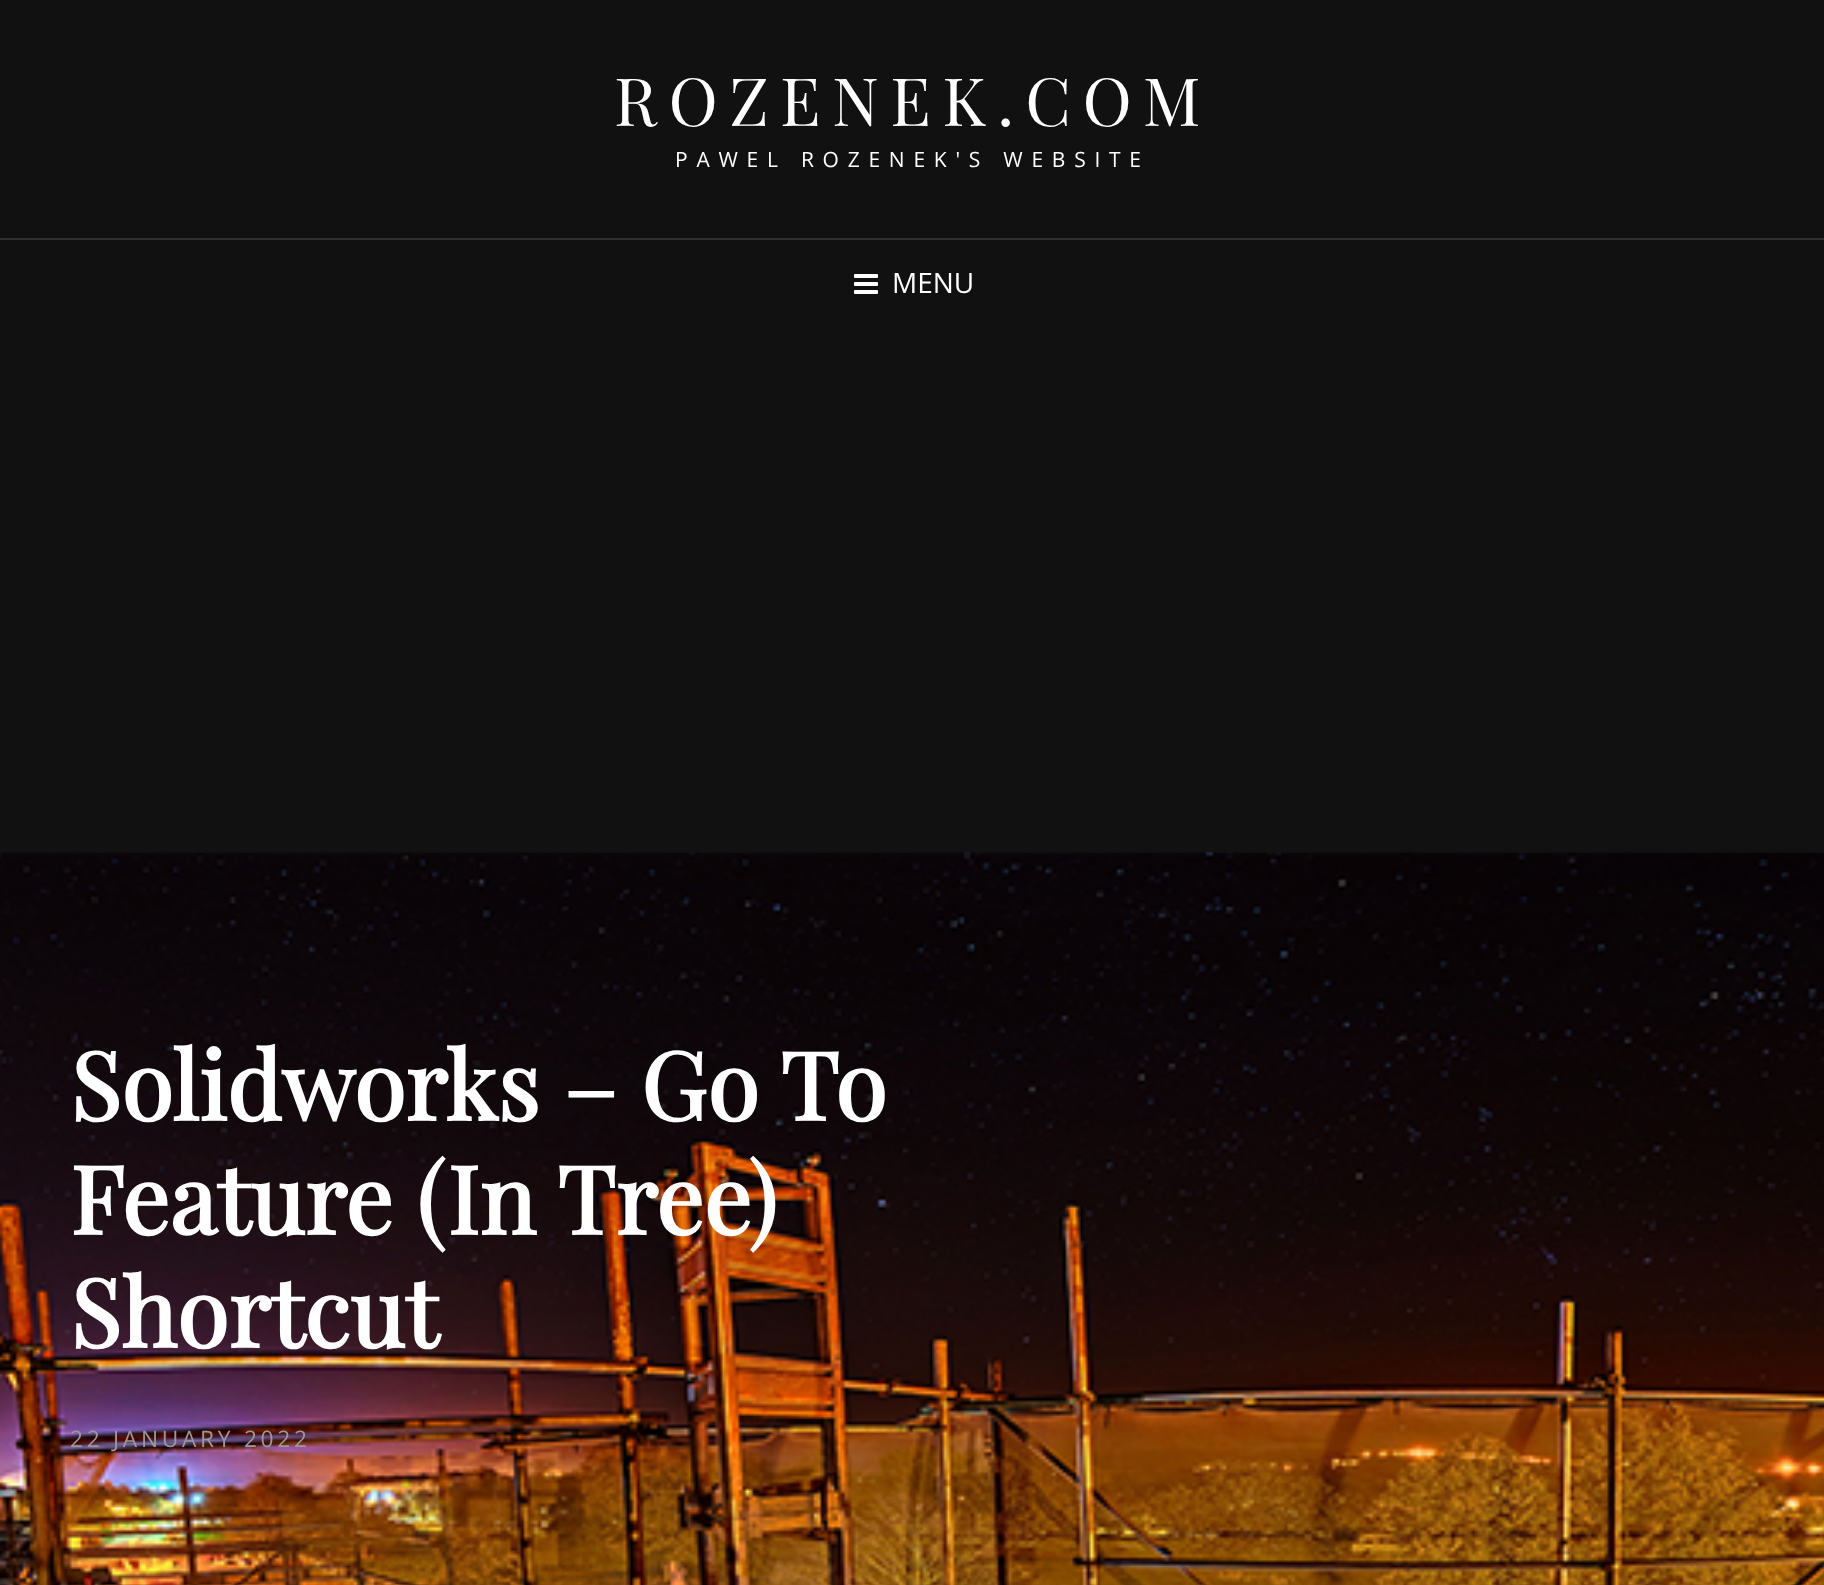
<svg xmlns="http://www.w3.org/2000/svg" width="1824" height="1585">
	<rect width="100%" height="100%" fill="#111111" />
	<text x="614" y="126" font-family="Playfair Display" font-size="66.5" letter-spacing="11.4" fill="#FFFFFF">ROZENEK.COM</text>
	<text x="675" y="167" font-family="Open Sans" font-size="21" letter-spacing="8.75" fill="#FFFFFF">PAWEL ROZENEK'S WEBSITE</text>
	<rect x="0" y="238" width="1824" height="2" fill="#2F2F2F" />
	<image x="854" y="274" width="24" height="20" href="assets/img1.png" />
	<text x="892" y="293" font-family="Open Sans" font-size="28" fill="#FFFFFF">MENU</text>
	<rect x="0" y="852" width="1824" height="5" fill="#222222" />
	<image x="0" y="852" width="1824" height="733" href="assets/img2.png" />
	<g font-family="Playfair Display" font-size="94.5" font-weight="700" fill="#FFFFFF">
		<text x="70" y="1121">Solidworks – Go To</text>
		<text x="70" y="1235">Feature (In Tree)</text>
		<text x="70" y="1348">Shortcut</text>
	</g>
	<text x="70" y="1447" font-family="Open Sans" font-size="22.75" letter-spacing="3.7" fill="#999999">22 JANUARY 2022</text>
</svg>
